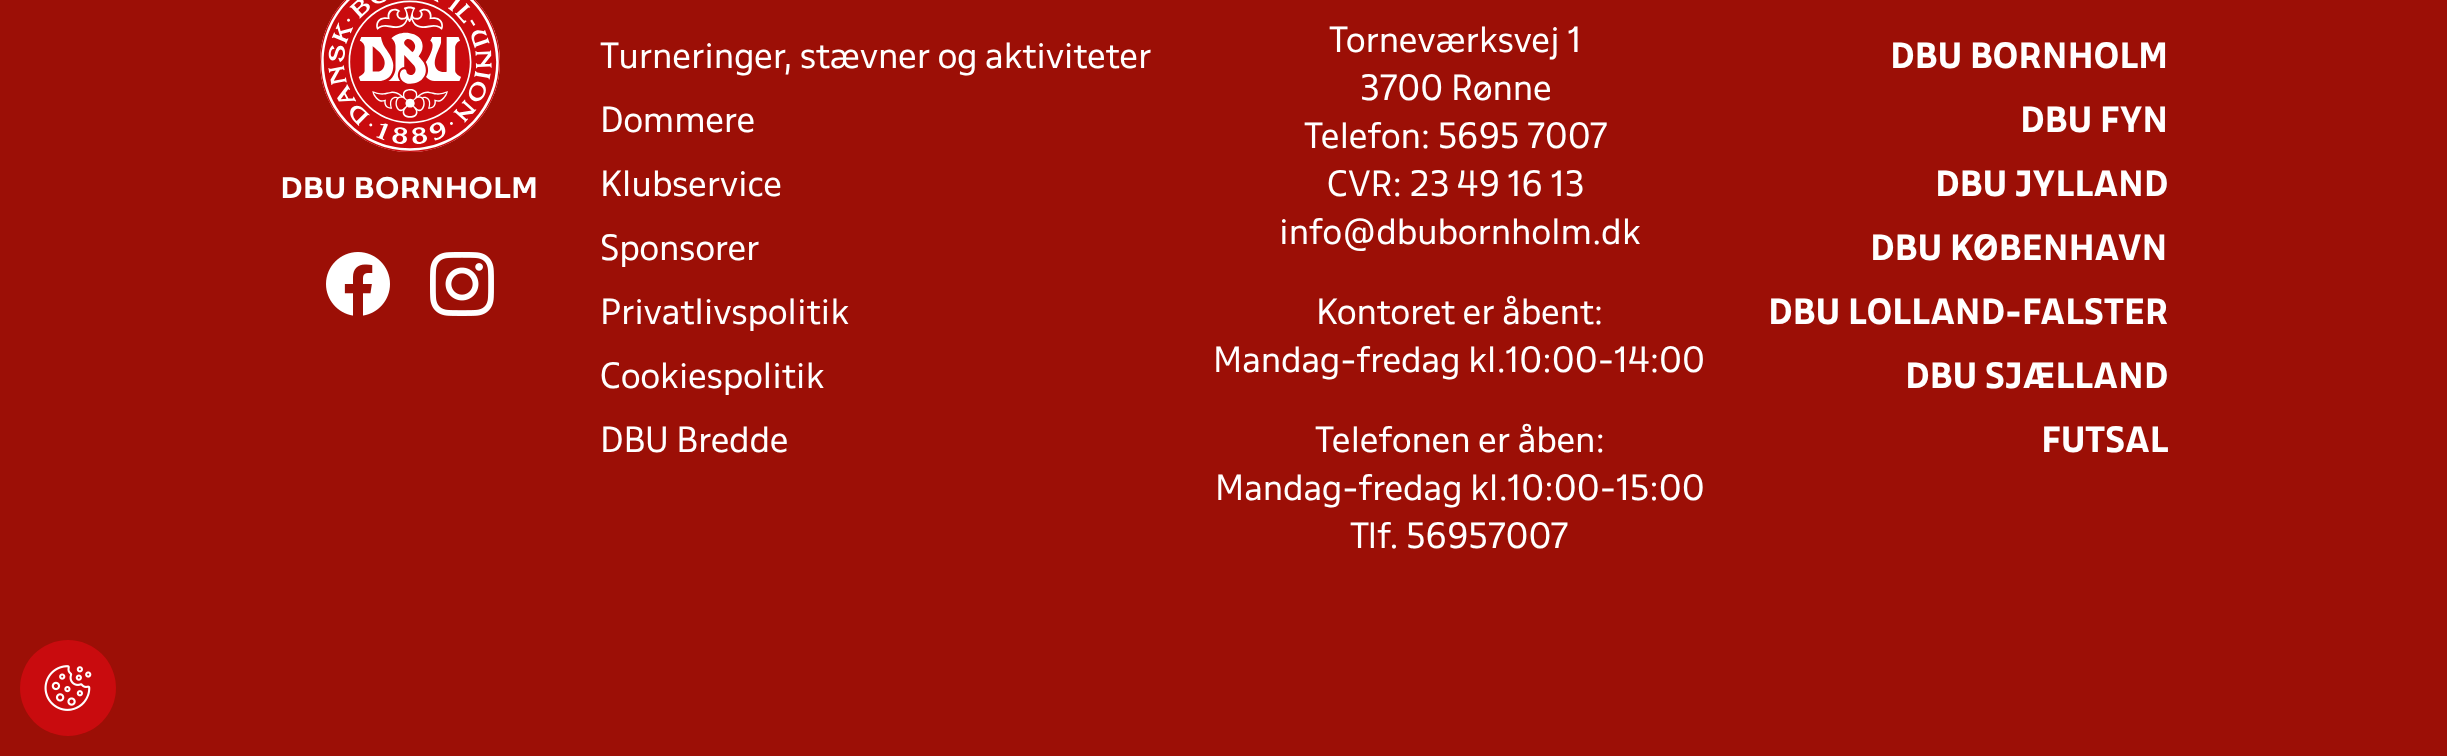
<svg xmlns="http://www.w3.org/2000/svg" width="2447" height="756">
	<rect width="100%" height="100%" fill="#9C0F06" />
	<image x="320" y="0" width="180" height="152" href="assets/img1.png" />
	<text x="280" y="198" font-family="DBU" font-size="26" font-weight="700" fill="#FFFFFF">DBU BORNHOLM</text>
	<image x="326" y="252" width="64" height="64" href="assets/img2.png" />
	<image x="430" y="252" width="64" height="64" href="assets/img3.png" />
	<g font-family="DBU" font-size="32" fill="#FFFFFF">
		<text x="600" y="68">Turneringer, stævner og aktiviteter</text>
		<text x="600" y="132">Dommere</text>
		<text x="600" y="196">Klubservice</text>
		<text x="600" y="260">Sponsorer</text>
		<text x="600" y="324">Privatlivspolitik</text>
		<text x="600" y="388">Cookiespolitik</text>
		<text x="600" y="452">DBU Bredde</text>
		<text x="1329" y="52">Torneværksvej 1</text>
		<text x="1360" y="100">3700 Rønne</text>
		<text x="1304" y="148">Telefon: 5695 7007</text>
		<text x="1327" y="196">CVR: 23 49 16 13</text>
		<text x="1279" y="244">info@dbubornholm.dk</text>
		<text x="1316" y="324">Kontoret er åbent:</text>
		<text x="1213" y="372">Mandag-fredag kl.10:00-14:00</text>
		<text x="1315" y="452">Telefonen er åben:</text>
		<text x="1215" y="500">Mandag-fredag kl.10:00-15:00</text>
		<text x="1350" y="548">Tlf. 56957007</text>
	</g>
	<g font-family="'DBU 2'" font-size="32" font-weight="700" fill="#FFFFFF">
		<text x="1890" y="68">DBU BORNHOLM</text>
		<text x="2020" y="132">DBU FYN</text>
		<text x="1935" y="196">DBU JYLLAND</text>
		<text x="1870" y="260">DBU KØBENHAVN</text>
		<text x="1768" y="324">DBU LOLLAND-FALSTER</text>
		<text x="1905" y="388">DBU SJÆLLAND</text>
		<text x="2041" y="452">FUTSAL</text>
	</g>
	<circle cx="68" cy="688" r="48" fill="#C90B0E" />
	<image x="44" y="665" width="48" height="46" href="assets/img4.png" />
</svg>
